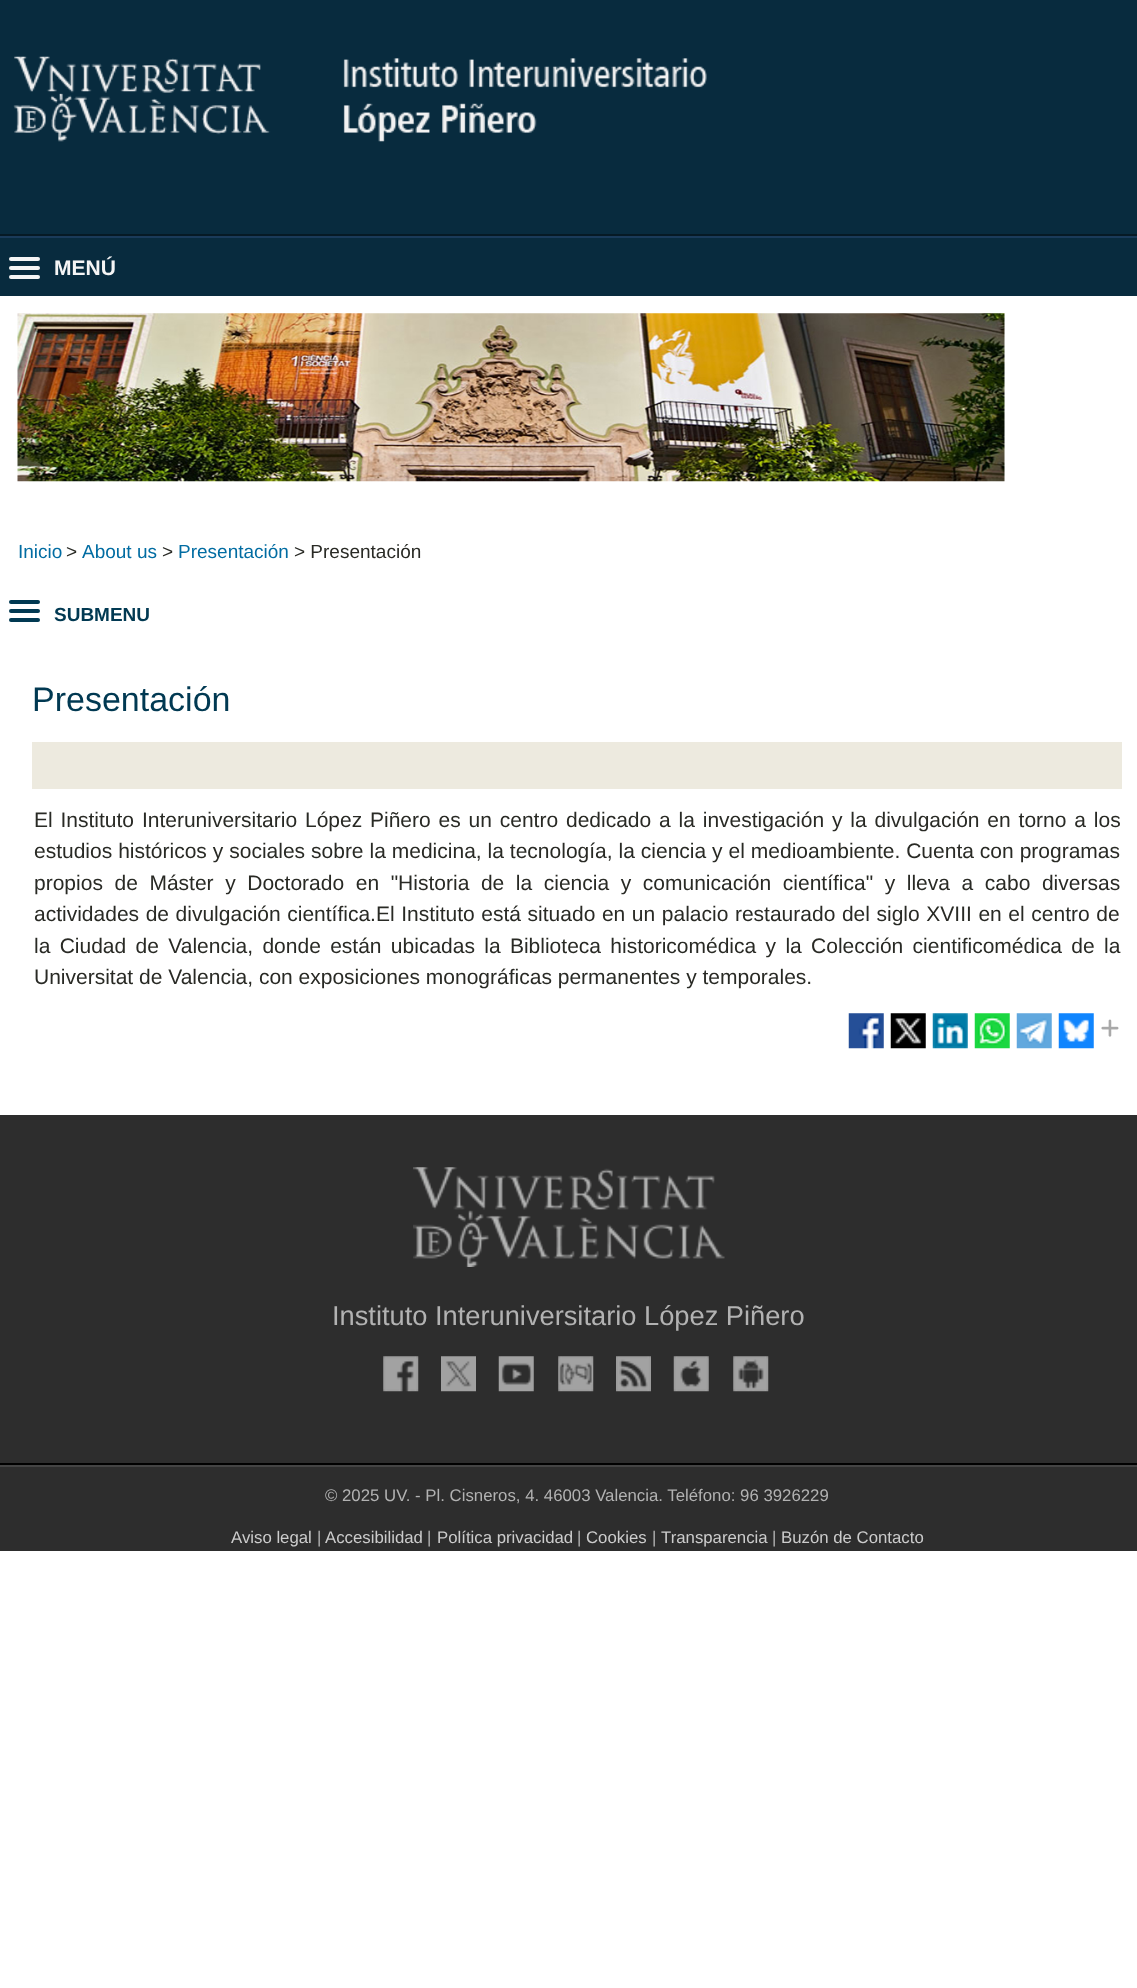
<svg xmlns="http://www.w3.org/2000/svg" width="1137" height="1988">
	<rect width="100%" height="100%" fill="#FFFFFF" />
	<rect x="0" y="0" width="1137" height="234" fill="#082B3E" />
	<rect x="0" y="234" width="1137" height="2" fill="#061A25" />
	<image x="13" y="56" width="694" height="86" href="assets/img1.png" />
	<rect x="0" y="238" width="1137" height="58" fill="#082B3E" />
	<rect x="0" y="236" width="1137" height="2" fill="#1A3B5A" />
	<rect x="9" y="257" width="31" height="4" rx="2" fill="#F5F5F5" />
	<text x="54" y="275" font-family="Liberation Sans" font-size="21" font-weight="700" fill="#F5F5F5">MENÚ</text>
	<rect x="9" y="266" width="31" height="4" rx="2" fill="#F5F5F5" />
	<rect x="9" y="275" width="31" height="4" rx="2" fill="#F5F5F5" />
	<image x="17" y="313" width="988" height="169" href="assets/img2.png" />
	<text x="18" y="558" font-family="Liberation Sans" font-size="19" fill="#016CA2">Inicio</text>
	<text x="66" y="558" font-family="Liberation Sans" font-size="19" fill="#292A25">&gt;</text>
	<text x="82" y="558" font-family="Liberation Sans" font-size="19" fill="#016CA2">About us</text>
	<text x="162" y="558" font-family="Liberation Sans" font-size="19" fill="#292A25">&gt;</text>
	<text x="178" y="558" font-family="Liberation Sans" font-size="19" fill="#016CA2">Presentación</text>
	<text x="294" y="558" font-family="Liberation Sans" font-size="19" fill="#292A25">&gt; Presentación</text>
	<rect x="9" y="600" width="31" height="4" rx="2" fill="#013952" />
	<rect x="9" y="609" width="31" height="4" rx="2" fill="#013952" />
	<text x="54" y="621" font-family="Liberation Sans" font-size="19" font-weight="700" fill="#013952">SUBMENU</text>
	<rect x="9" y="618" width="31" height="4" rx="2" fill="#013952" />
	<text x="32" y="711" font-family="Liberation Sans" font-size="34" fill="#013952">Presentación</text>
	<rect x="32" y="742" width="1090" height="47" fill="#EDEADF" />
	<g font-family="Liberation Sans" font-size="21" fill="#292A25">
		<text x="34" y="827" word-spacing="2">El Instituto Interuniversitario López Piñero es un centro dedicado a la investigación y la divulgación en torno a los</text>
		<text x="34" y="858" word-spacing="0.1">estudios históricos y sociales sobre la medicina, la tecnología, la ciencia y el medioambiente. Cuenta con programas</text>
		<text x="34" y="890" word-spacing="5.75">propios de Máster y Doctorado en "Historia de la ciencia y comunicación científica" y lleva a cabo diversas</text>
		<text x="34" y="921" word-spacing="0.75">actividades de divulgación científica.El Instituto está situado en un palacio restaurado del siglo XVIII en el centro de</text>
		<text x="34" y="953" word-spacing="3.5">la Ciudad de Valencia, donde están ubicadas la Biblioteca historicomédica y la Colección cientificomédica de la</text>
		<text x="34" y="984">Universitat de Valencia, con exposiciones monográficas permanentes y temporales.</text>
	</g>
	<image x="848" y="1013" width="36" height="36" href="assets/img3.png" />
	<image x="890" y="1013" width="36" height="36" href="assets/img4.png" />
	<image x="932" y="1013" width="36" height="36" href="assets/img5.png" />
	<image x="974" y="1013" width="36" height="36" href="assets/img6.png" />
	<image x="1016" y="1013" width="36" height="36" href="assets/img7.png" />
	<image x="1058" y="1013" width="36" height="36" href="assets/img8.png" />
	<image x="1101" y="1019" width="18" height="18" href="assets/img9.png" />
	<rect x="0" y="1115" width="1137" height="436" fill="#2D2D2D" />
	<image x="413" y="1167" width="312" height="100" href="assets/img10.png" />
	<text x="332" y="1325" font-family="Liberation Sans" font-size="27.25" fill="#B2B2B2">Instituto Interuniversitario López Piñero</text>
	<image x="383" y="1356" width="36" height="36" href="assets/img11.png" />
	<image x="441" y="1356" width="35" height="36" href="assets/img12.png" />
	<image x="498" y="1356" width="36" height="36" href="assets/img13.png" />
	<image x="558" y="1356" width="36" height="36" href="assets/img14.png" />
	<image x="616" y="1356" width="35" height="36" href="assets/img15.png" />
	<image x="673" y="1356" width="36" height="36" href="assets/img16.png" />
	<image x="733" y="1356" width="36" height="36" href="assets/img17.png" />
	<rect x="0" y="1463" width="1137" height="2" fill="#000000" />
	<rect x="0" y="1465" width="1137" height="2" fill="#444444" />
	<text x="325" y="1501" font-family="Liberation Sans" font-size="16.8" fill="#B2B2B2">© 2025 UV. - Pl. Cisneros, 4. 46003 Valencia. Teléfono: 96 3926229</text>
	<text x="231" y="1543" font-family="Liberation Sans" font-size="16.8" fill="#CCCCCC">Aviso legal</text>
	<text x="317" y="1543" font-family="Liberation Sans" font-size="16.8" fill="#B2B2B2">|</text>
	<text x="325" y="1543" font-family="Liberation Sans" font-size="16.8" fill="#CCCCCC">Accesibilidad</text>
	<text x="427" y="1543" font-family="Liberation Sans" font-size="16.8" fill="#B2B2B2">|</text>
	<text x="437" y="1543" font-family="Liberation Sans" font-size="16.8" fill="#CCCCCC">Política privacidad</text>
	<text x="577" y="1543" font-family="Liberation Sans" font-size="16.8" fill="#B2B2B2">|</text>
	<text x="586" y="1543" font-family="Liberation Sans" font-size="16.8" fill="#CCCCCC">Cookies</text>
	<text x="652" y="1543" font-family="Liberation Sans" font-size="16.8" fill="#B2B2B2">|</text>
	<text x="661" y="1543" font-family="Liberation Sans" font-size="16.8" fill="#CCCCCC">Transparencia</text>
	<text x="772" y="1543" font-family="Liberation Sans" font-size="16.8" fill="#B2B2B2">|</text>
	<text x="781" y="1543" font-family="Liberation Sans" font-size="16.8" fill="#CCCCCC">Buzón de Contacto</text>
</svg>
